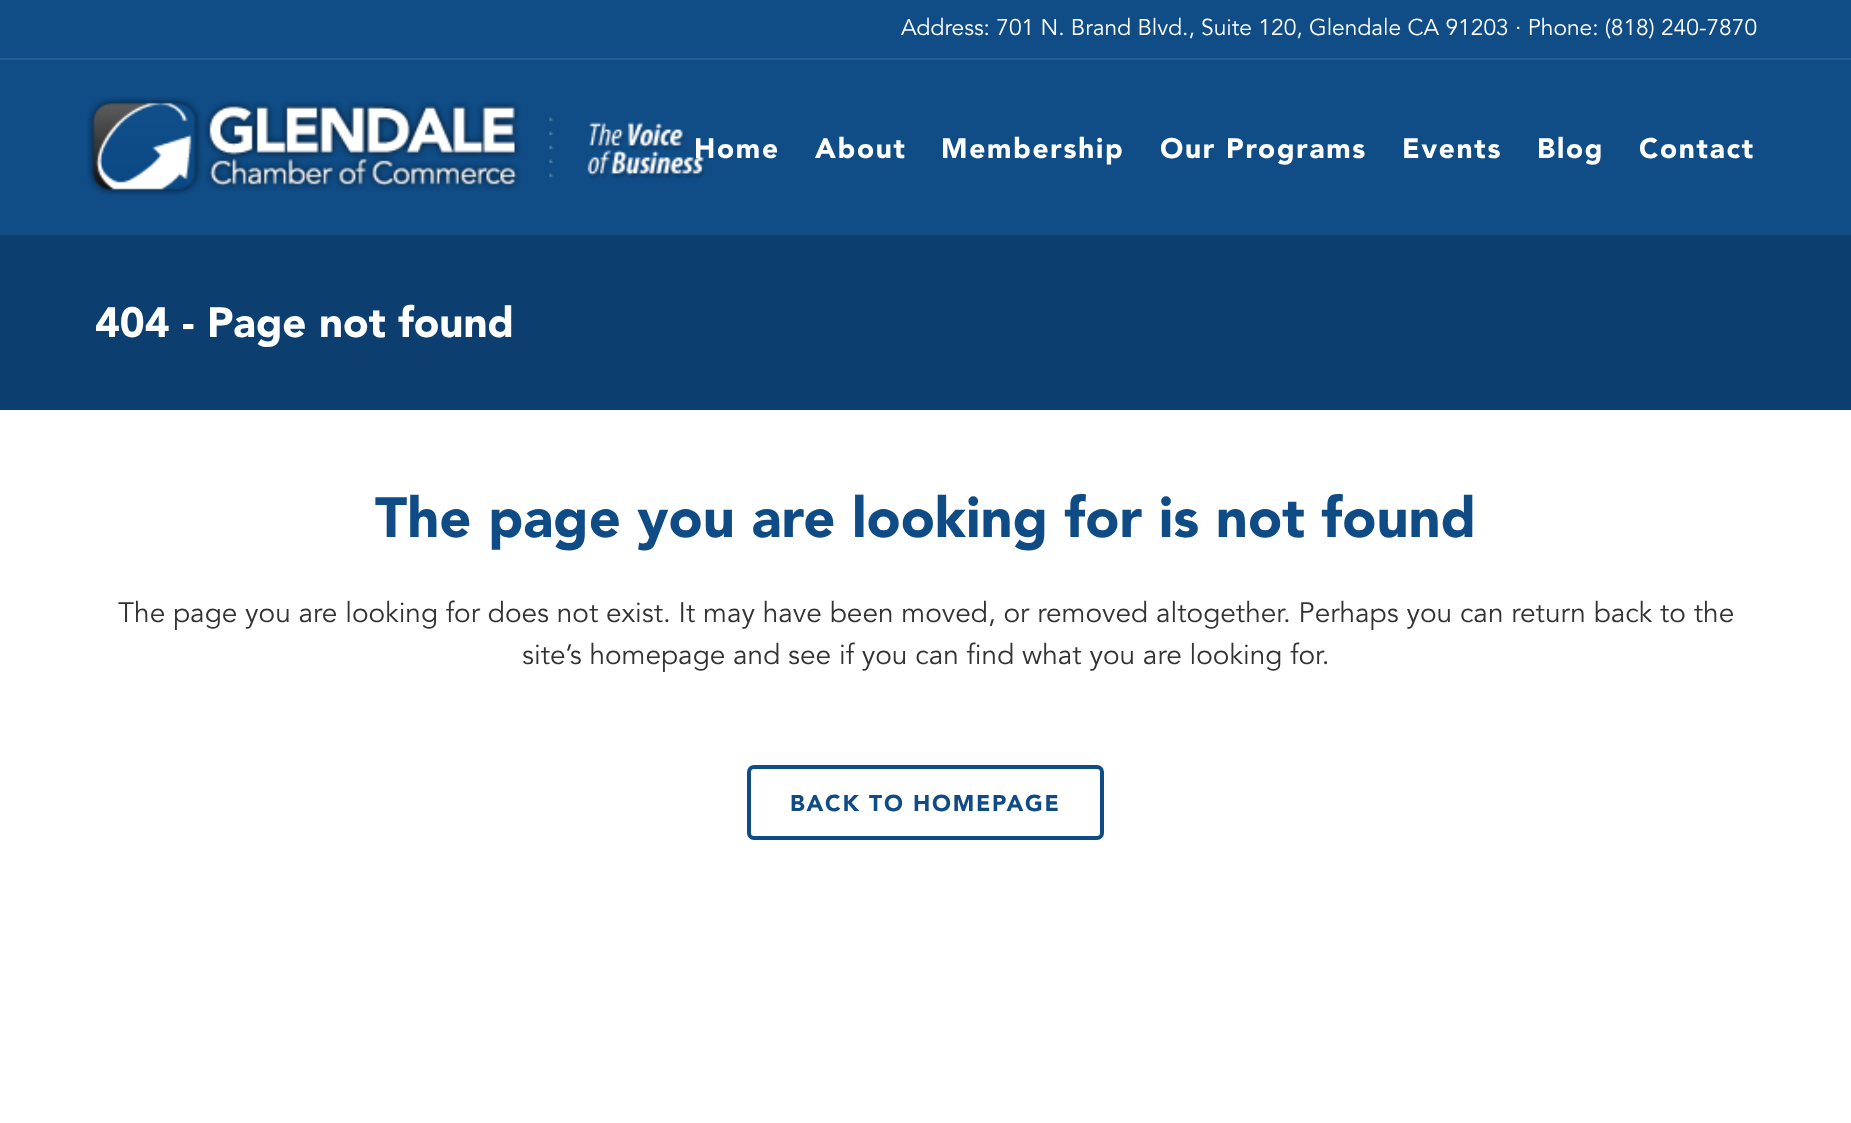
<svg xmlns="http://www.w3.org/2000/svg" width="1851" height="1123">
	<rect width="100%" height="100%" fill="#FFFFFF" />
	<rect x="0" y="0" width="1851" height="58" fill="#104C85" />
	<rect x="0" y="58" width="1851" height="2" fill="#265E91" />
	<text x="901" y="35" font-family="Avenir" font-size="22.75" fill="#FFFFFF">Address: 701 N. Brand Blvd., Suite 120, Glendale CA 91203 · Phone: (818) 240-7870</text>
	<rect x="0" y="60" width="1851" height="175" fill="#104C85" />
	<image x="87" y="97" width="619" height="98" href="assets/img1.png" />
	<g font-family="Avenir" font-size="28" font-weight="900" letter-spacing="1.75" fill="#FFFFFF">
		<text x="694" y="158">Home</text>
		<text x="815" y="158">About</text>
		<text x="941" y="158">Membership</text>
		<text x="1160" y="158">Our Programs</text>
		<text x="1402" y="158">Events</text>
		<text x="1537" y="158">Blog</text>
		<text x="1639" y="158">Contact</text>
	</g>
	<rect x="0" y="235" width="1851" height="175" fill="#0C3F6F" />
	<text x="95" y="337" font-family="Avenir" font-size="42" font-weight="900" fill="#FFFFFF">404 - Page not found</text>
	<text x="375" y="537" font-family="Avenir" font-size="56" font-weight="900" fill="#0F4B84">The page you are looking for is not found</text>
	<g font-family="Avenir" font-size="28" fill="#333333">
		<text x="118" y="622">The page you are looking for does not exist. It may have been moved, or removed altogether. Perhaps you can return back to the</text>
		<text x="522" y="664">site’s homepage and see if you can find what you are looking for.</text>
	</g>
	<rect x="749" y="767" width="353" height="71" rx="5" fill="none" stroke="#0F4B84" stroke-width="4" />
	<text x="790" y="811" font-family="Avenir" font-size="22.75" font-weight="900" letter-spacing="1.75" fill="#0F4B84">BACK TO HOMEPAGE</text>
</svg>
